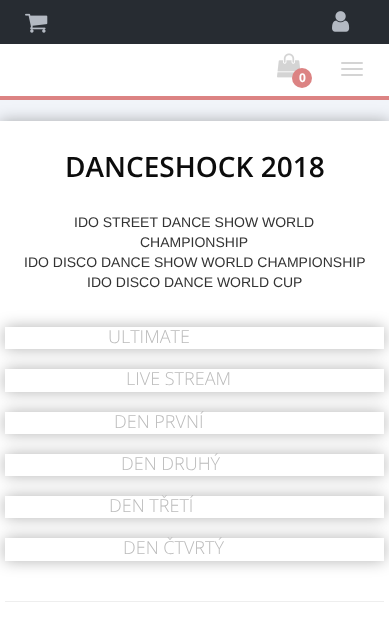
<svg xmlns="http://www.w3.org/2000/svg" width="389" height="622">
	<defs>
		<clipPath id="clip1"><path d="M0 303H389V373H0ZM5 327H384V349H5Z" clip-rule="evenodd" /></clipPath>
		<clipPath id="clip2"><path d="M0 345H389V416H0ZM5 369H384V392H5Z" clip-rule="evenodd" /></clipPath>
		<clipPath id="clip3"><path d="M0 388H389V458H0ZM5 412H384V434H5Z" clip-rule="evenodd" /></clipPath>
		<clipPath id="clip4"><path d="M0 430H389V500H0ZM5 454H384V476H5Z" clip-rule="evenodd" /></clipPath>
		<clipPath id="clip5"><path d="M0 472H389V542H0ZM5 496H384V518H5Z" clip-rule="evenodd" /></clipPath>
		<clipPath id="clip6"><path d="M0 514H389V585H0ZM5 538H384V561H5Z" clip-rule="evenodd" /></clipPath>
	</defs>
	<rect width="100%" height="100%" fill="#FFFFFF" />
	<rect x="0" y="100" width="389" height="21" fill="#F1F4F9" />
	<rect x="0" y="121" width="389" height="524" fill="#000000" fill-opacity="0.3" filter="blur(7.5px)" />
	<rect x="0" y="96" width="389" height="4" fill="#DC8383" />
	<rect x="0" y="0" width="389" height="44" fill="#272C32" />
	<image x="25" y="13" width="23" height="20" href="assets/img1.png" />
	<image x="332" y="11" width="18" height="21" href="assets/img2.png" />
	<rect x="341" y="62" width="22" height="2" rx="1" fill="#D4D4D4" />
	<rect x="341" y="68" width="22" height="2" rx="1" fill="#D4D4D4" />
	<rect x="341" y="74" width="22" height="2" rx="1" fill="#D4D4D4" />
	<image x="277" y="53" width="24" height="25" href="assets/img3.png" />
	<circle cx="302" cy="78" r="10" fill="#DC8383" />
	<text x="299" y="82" font-family="Open Sans" font-size="12" font-weight="700" fill="#FFFFFF">0</text>
	<rect x="0" y="121" width="389" height="501" fill="#FFFFFF" />
	<text x="65" y="177" font-family="Open Sans" font-size="28" font-weight="600" fill="#0C0C0C">DANCESHOCK 2018</text>
	<g font-family="Liberation Sans" font-size="14" fill="#333333">
		<text x="74" y="227">IDO STREET DANCE SHOW WORLD</text>
		<text x="140" y="247">CHAMPIONSHIP</text>
		<text x="24" y="267">IDO DISCO DANCE SHOW WORLD CHAMPIONSHIP</text>
		<text x="87" y="287">IDO DISCO DANCE WORLD CUP</text>
	</g>
	<g clip-path="url(#clip1)">
		<rect x="5" y="327" width="379" height="22" fill="#000000" fill-opacity="0.3" filter="blur(7.5px)" />
	</g>
	<text x="108" y="343" font-family="Open Sans" font-size="18" font-weight="300" fill="#BBBBBB">ULTIMATE</text>
	<g clip-path="url(#clip2)">
		<rect x="5" y="369" width="379" height="23" fill="#000000" fill-opacity="0.3" filter="blur(7.5px)" />
	</g>
	<text x="126" y="385" font-family="Open Sans" font-size="18" font-weight="300" fill="#BBBBBB">LIVE STREAM</text>
	<g clip-path="url(#clip3)">
		<rect x="5" y="412" width="379" height="22" fill="#000000" fill-opacity="0.3" filter="blur(7.5px)" />
	</g>
	<text x="114" y="428" font-family="Open Sans" font-size="18" font-weight="300" fill="#BBBBBB">DEN PRVNÍ</text>
	<g clip-path="url(#clip4)">
		<rect x="5" y="454" width="379" height="22" fill="#000000" fill-opacity="0.3" filter="blur(7.5px)" />
	</g>
	<text x="121" y="470" font-family="Open Sans" font-size="18" font-weight="300" fill="#BBBBBB">DEN DRUHÝ</text>
	<g clip-path="url(#clip5)">
		<rect x="5" y="496" width="379" height="22" fill="#000000" fill-opacity="0.3" filter="blur(7.5px)" />
	</g>
	<text x="109" y="512" font-family="Open Sans" font-size="18" font-weight="300" fill="#BBBBBB">DEN TŘETÍ</text>
	<g clip-path="url(#clip6)">
		<rect x="5" y="538" width="379" height="23" fill="#000000" fill-opacity="0.3" filter="blur(7.5px)" />
	</g>
	<text x="123" y="554" font-family="Open Sans" font-size="18" font-weight="300" fill="#BBBBBB">DEN ČTVRTÝ</text>
	<rect x="5" y="601" width="379" height="1" fill="#EEEEEE" />
</svg>
